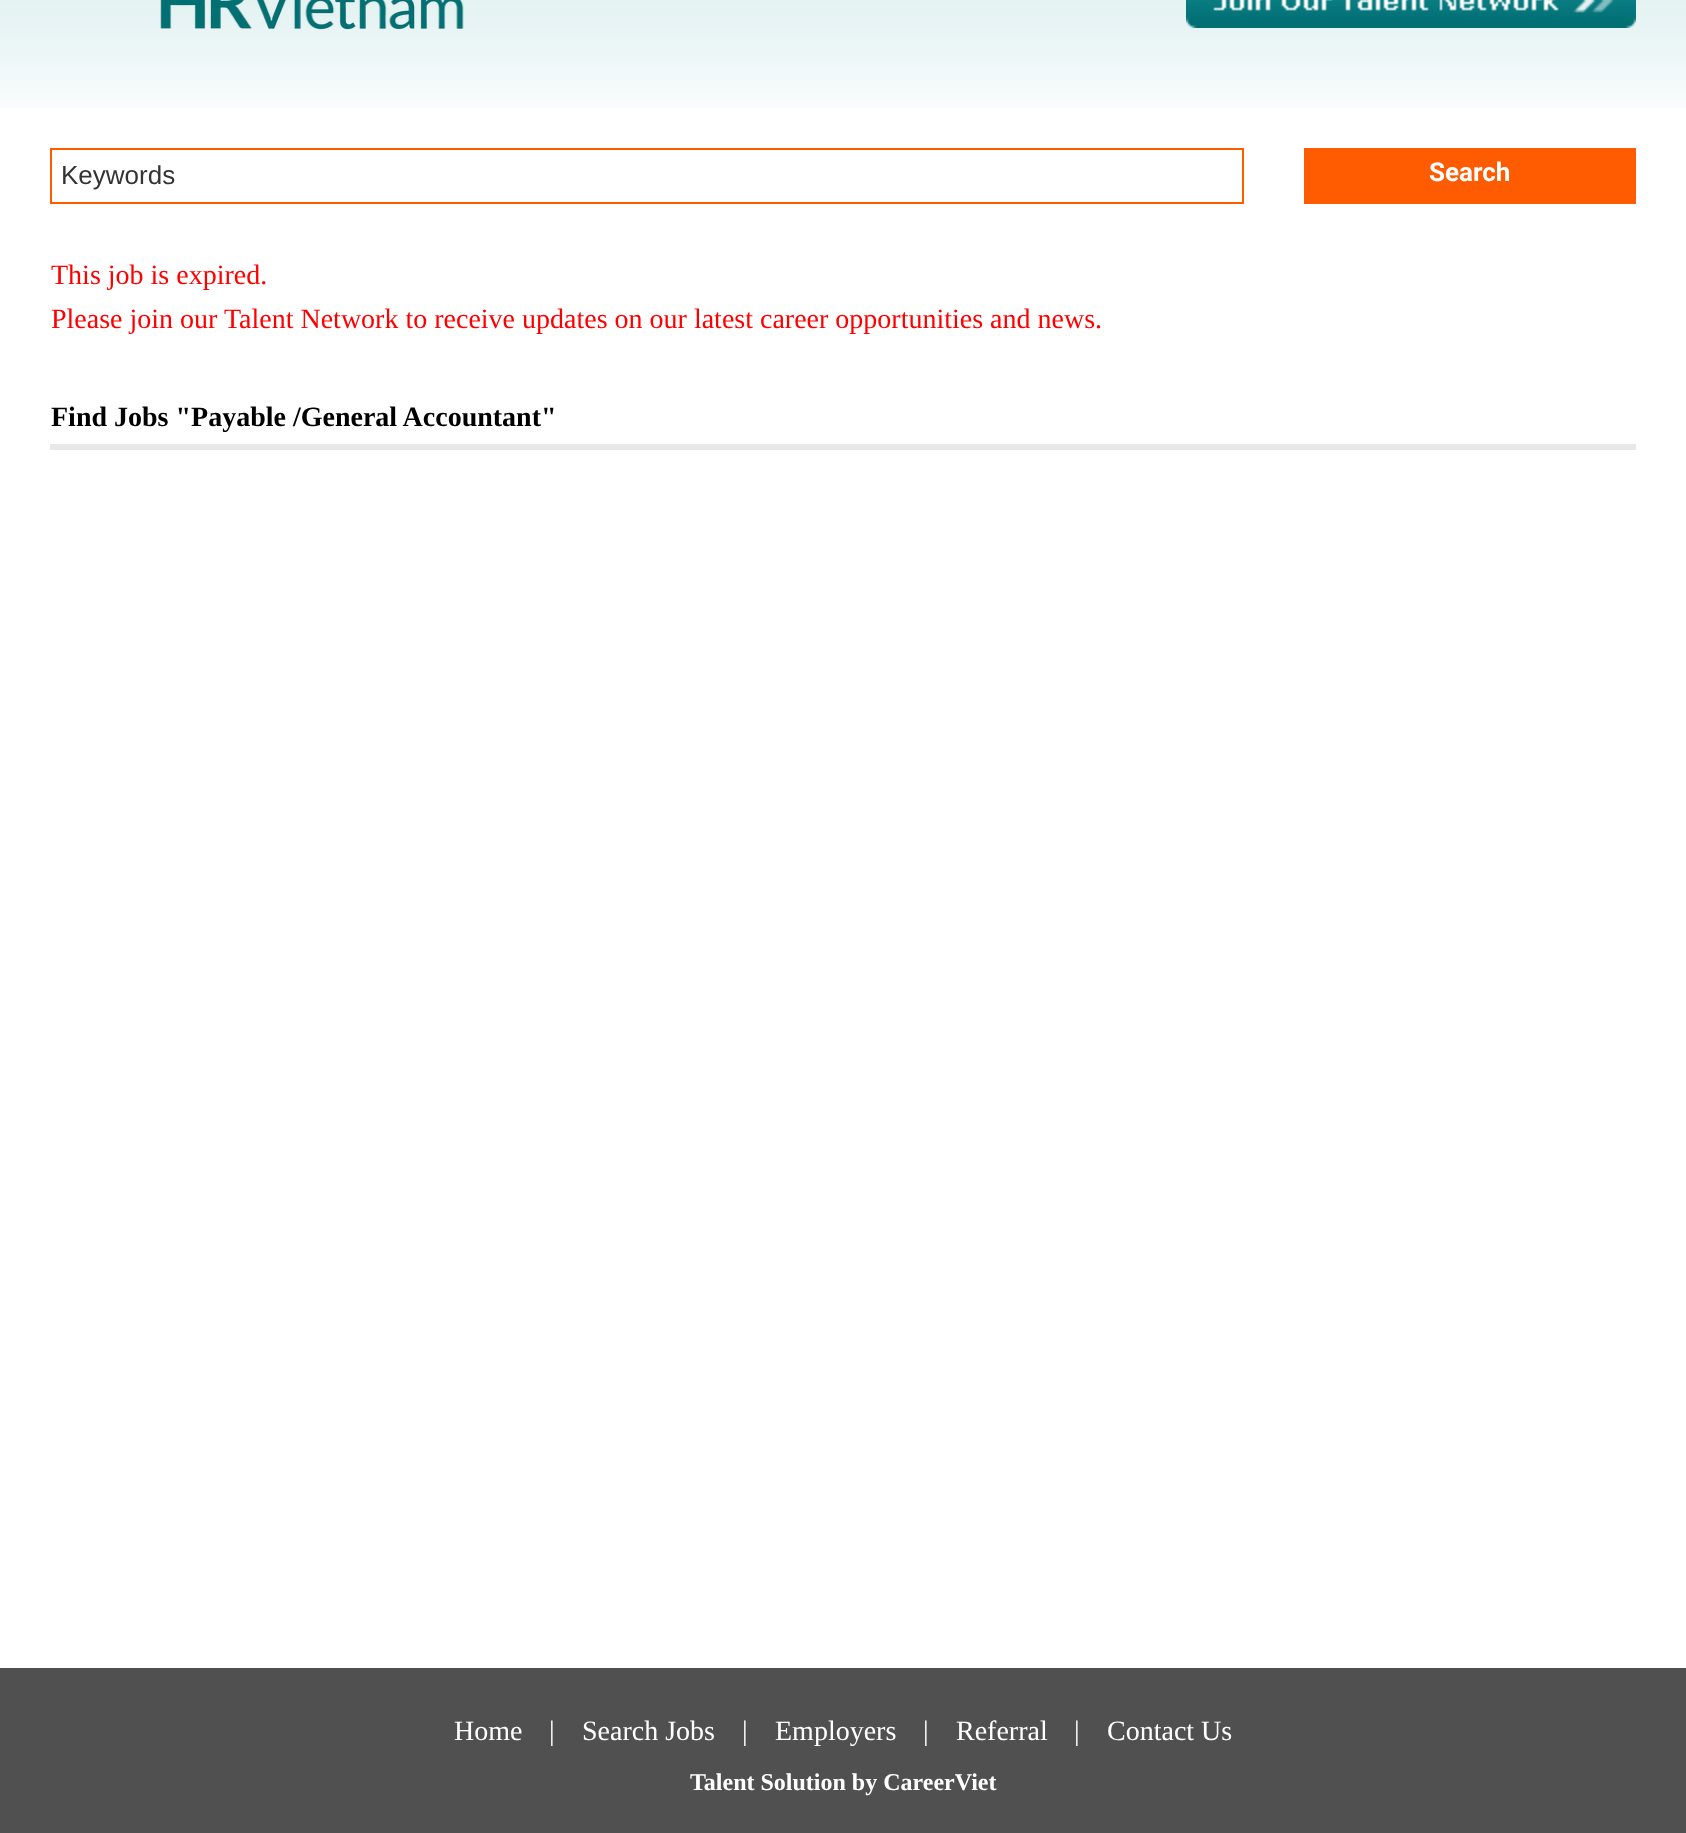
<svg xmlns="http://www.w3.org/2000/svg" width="1686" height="1833">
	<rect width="100%" height="100%" fill="#FFFFFF" />
	<image x="0" y="0" width="1686" height="108" href="assets/img1.png" />
	<image x="160" y="0" width="304" height="30" href="assets/img2.png" />
	<image x="1186" y="0" width="450" height="28" href="assets/img3.png" />
	<rect x="51" y="149" width="1192" height="54" fill="none" stroke="#FF5B00" stroke-width="2" />
	<text x="61" y="184" font-family="Liberation Sans" font-size="26" fill="#333333">Keywords</text>
	<rect x="1304" y="148" width="332" height="56" fill="#FF5B00" />
	<text x="1429" y="181" font-family="Roboto" font-size="26" font-weight="700" fill="#FFFFFF">Search</text>
	<g font-family="Liberation Serif" font-size="28" fill="#FF0000">
		<text x="51" y="284">This job is expired.</text>
		<text x="51" y="328">Please join our Talent Network to receive updates on our latest career opportunities and news.</text>
	</g>
	<rect x="50" y="444" width="1586" height="6" fill="#E8E8E8" />
	<text x="51" y="426" font-family="Liberation Serif" font-size="28" font-weight="700" fill="#000000">Find Jobs "Payable /General Accountant"</text>
	<rect x="0" y="1668" width="1686" height="165" fill="#505050" />
	<g font-family="Liberation Serif" font-size="28" fill="#FFFFFF">
		<text x="454" y="1740">Home</text>
		<text x="549" y="1740">|</text>
		<text x="582" y="1740">Search Jobs</text>
		<text x="742" y="1740">|</text>
		<text x="775" y="1740">Employers</text>
		<text x="923" y="1740">|</text>
		<text x="956" y="1740">Referral</text>
		<text x="1074" y="1740">|</text>
		<text x="1107" y="1740">Contact Us</text>
	</g>
	<text x="690" y="1790" font-family="Liberation Serif" font-size="24" font-weight="700" fill="#FFFFFF">Talent Solution by CareerViet</text>
</svg>
